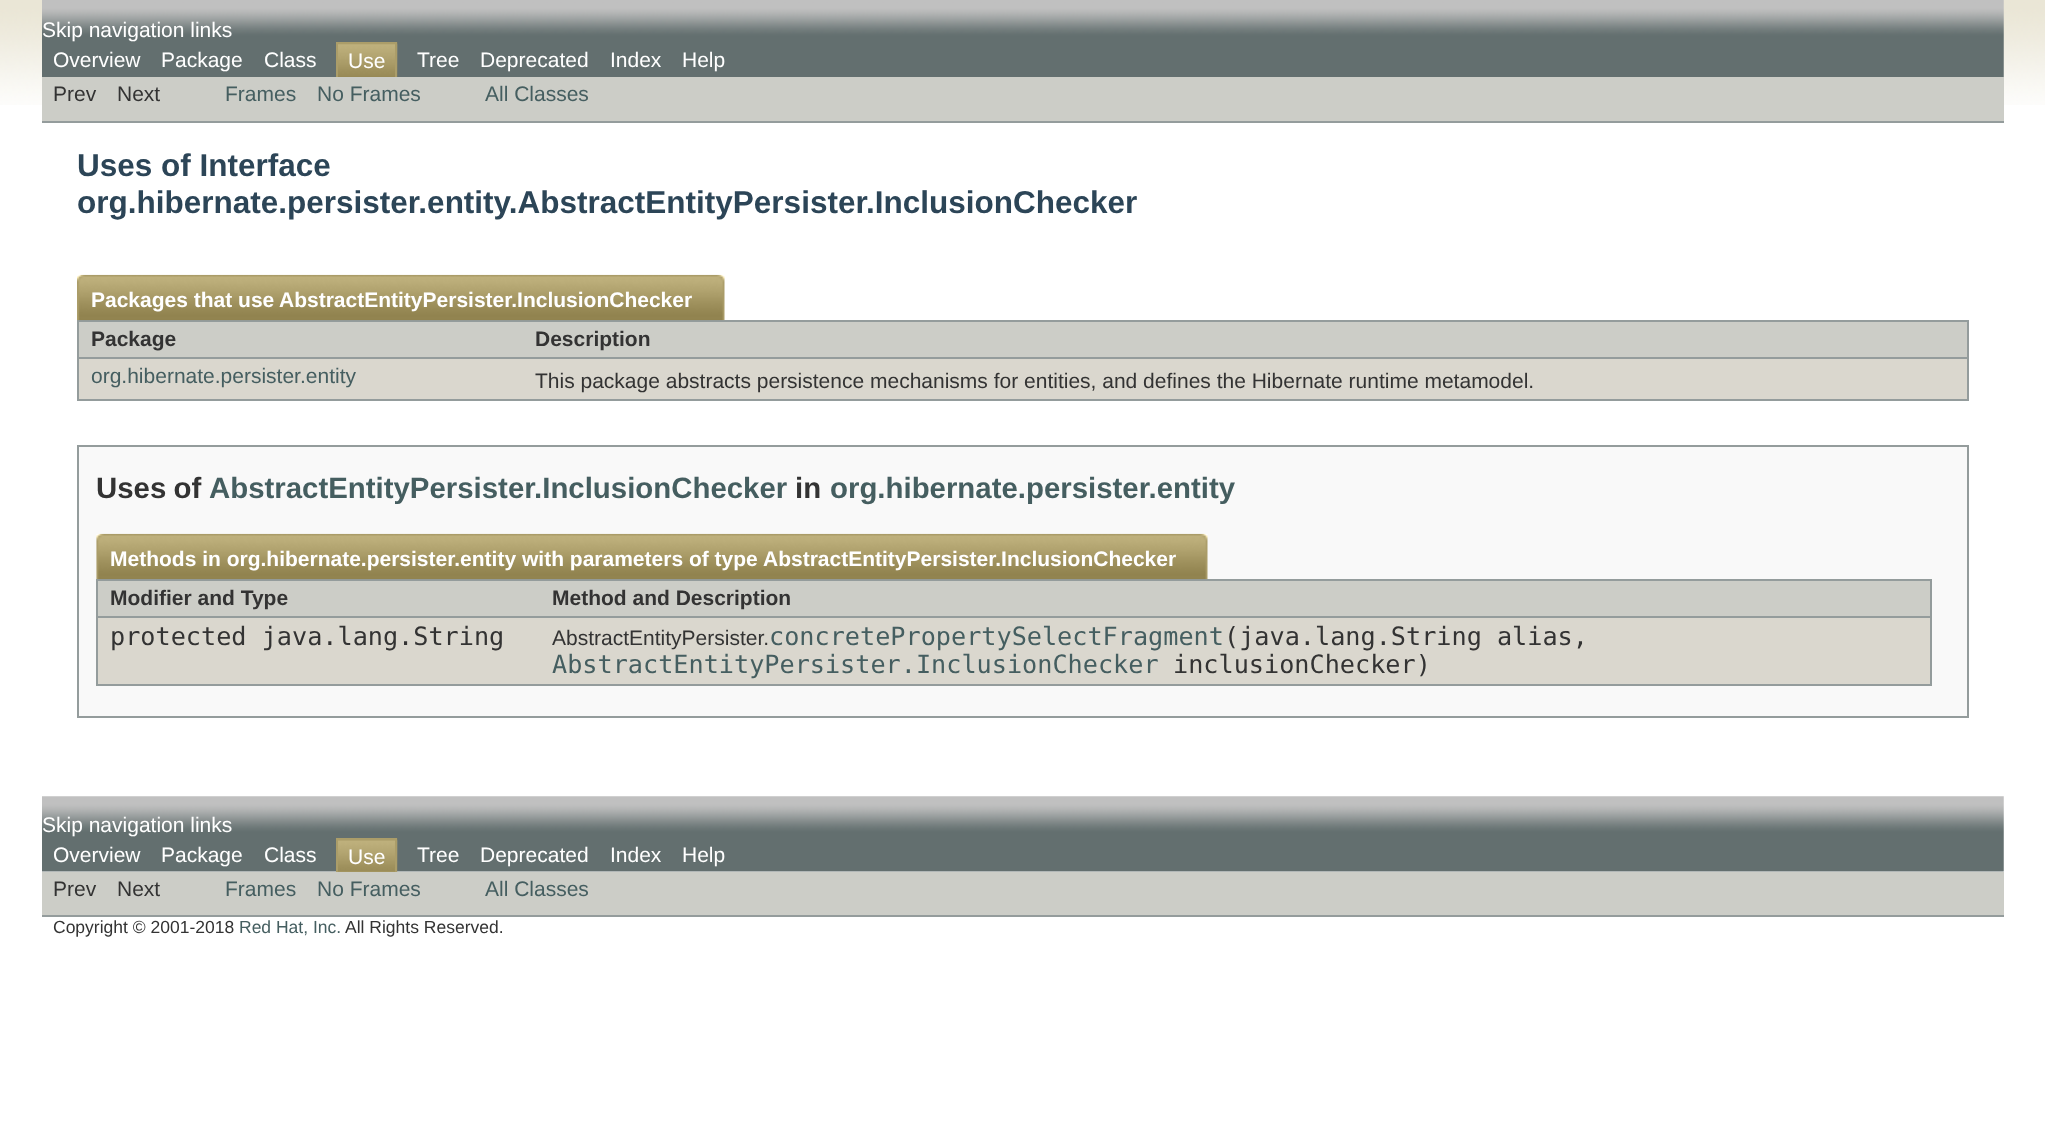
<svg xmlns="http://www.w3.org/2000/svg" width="2045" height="1122">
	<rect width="100%" height="100%" fill="#FFFFFF" />
	<image x="0" y="0" width="2045" height="105" href="assets/img1.png" />
	<image x="42" y="0" width="1962" height="77" href="assets/img2.png" />
	<g font-family="Liberation Sans" font-size="21" fill="#FFFFFF">
		<text x="42" y="37">Skip navigation links</text>
		<text x="53" y="67">Overview</text>
		<text x="161" y="67">Package</text>
		<text x="264" y="67">Class</text>
	</g>
	<image x="338" y="42" width="60" height="35" href="assets/img3.png" />
	<rect x="337" y="43" width="59" height="37" fill="none" stroke="#AB9D69" stroke-width="2" />
	<g font-family="Liberation Sans" font-size="21" fill="#FFFFFF">
		<text x="348" y="68">Use</text>
		<text x="417" y="67">Tree</text>
		<text x="480" y="67">Deprecated</text>
		<text x="610" y="67">Index</text>
		<text x="682" y="67">Help</text>
	</g>
	<rect x="42" y="77" width="1962" height="44" fill="#CCCDC7" />
	<rect x="42" y="121" width="1962" height="2" fill="#949C9C" />
	<g font-family="Liberation Sans" font-size="21" fill="#333333">
		<text x="53" y="101">Prev</text>
		<text x="117" y="101">Next</text>
	</g>
	<g font-family="Liberation Sans" font-size="21" fill="#455E60">
		<text x="225" y="101">Frames</text>
		<text x="317" y="101">No Frames</text>
		<text x="485" y="101">All Classes</text>
	</g>
	<g font-family="Liberation Sans" font-size="31.5" font-weight="700" fill="#2C4557">
		<text x="77" y="176">Uses of Interface</text>
		<text x="77" y="213">org.hibernate.persister.entity.AbstractEntityPersister.InclusionChecker</text>
	</g>
	<rect x="77" y="399" width="1892" height="2" fill="#949C9C" />
	<rect x="77" y="320" width="1892" height="2" fill="#949C9C" />
	<rect x="77" y="357" width="446" height="2" fill="#949C9C" />
	<rect x="77" y="320" width="2" height="79" fill="#949C9C" />
	<image x="77" y="274" width="616" height="47" href="assets/img4.png" />
	<g font-family="Liberation Sans" font-size="21" font-weight="700" fill="#FFFFFF">
		<text x="91" y="307">Packages that use</text>
		<text x="279" y="307">AbstractEntityPersister.InclusionChecker</text>
	</g>
	<image x="693" y="274" width="32" height="47" href="assets/img5.png" />
	<rect x="79" y="322" width="1888" height="35" fill="#CCCDC7" />
	<text x="91" y="346" font-family="Liberation Sans" font-size="21" font-weight="700" fill="#333333">Package</text>
	<rect x="1967" y="320" width="2" height="79" fill="#949C9C" />
	<rect x="523" y="357" width="1446" height="2" fill="#949C9C" />
	<text x="535" y="346" font-family="Liberation Sans" font-size="21" font-weight="700" fill="#333333">Description</text>
	<rect x="79" y="359" width="1888" height="40" fill="#DAD7CE" />
	<text x="91" y="383" font-family="Liberation Sans" font-size="21" fill="#455E60">org.hibernate.persister.entity</text>
	<text x="535" y="388" font-family="Liberation Sans" font-size="21" fill="#333333">This package abstracts persistence mechanisms for entities, and defines the Hibernate runtime metamodel.</text>
	<rect x="78" y="446" width="1890" height="271" fill="#F9F9F9" stroke="#949C9C" stroke-width="2" />
	<text x="96" y="498" word-spacing="-1" font-family="Liberation Sans" font-size="29.4" font-weight="700" fill="#333333">Uses of</text>
	<text x="209" y="498" font-family="Liberation Sans" font-size="29.4" font-weight="700" fill="#455E60">AbstractEntityPersister.InclusionChecker</text>
	<text x="795" y="498" font-family="Liberation Sans" font-size="29.4" font-weight="700" fill="#333333">in</text>
	<text x="830" y="498" font-family="Liberation Sans" font-size="29.4" font-weight="700" fill="#455E60">org.hibernate.persister.entity</text>
	<rect x="96" y="684" width="1836" height="2" fill="#949C9C" />
	<rect x="96" y="579" width="1836" height="2" fill="#949C9C" />
	<rect x="96" y="616" width="443" height="2" fill="#949C9C" />
	<rect x="96" y="579" width="2" height="105" fill="#949C9C" />
	<image x="96" y="533" width="1080" height="47" href="assets/img6.png" />
	<g font-family="Liberation Sans" font-size="21" font-weight="700" fill="#FFFFFF">
		<text x="110" y="566">Methods in org.hibernate.persister.entity</text>
		<text x="522" y="566">with parameters of type</text>
		<text x="763" y="566">AbstractEntityPersister.InclusionChecker</text>
	</g>
	<image x="1176" y="533" width="32" height="47" href="assets/img7.png" />
	<rect x="98" y="581" width="1832" height="35" fill="#CCCDC7" />
	<text x="110" y="605" font-family="Liberation Sans" font-size="21" font-weight="700" fill="#333333">Modifier and Type</text>
	<rect x="1930" y="579" width="2" height="105" fill="#949C9C" />
	<rect x="539" y="616" width="1393" height="2" fill="#949C9C" />
	<text x="552" y="605" font-family="Liberation Sans" font-size="21" font-weight="700" fill="#333333">Method and Description</text>
	<rect x="98" y="618" width="1832" height="66" fill="#DAD7CE" />
	<text x="110" y="645" font-family="DejaVu Sans Mono" font-size="25.2" fill="#333333">protected java.lang.String</text>
	<text x="552" y="645" font-family="Liberation Sans" font-size="21" fill="#333333">AbstractEntityPersister.</text>
	<text x="769" y="645" font-family="DejaVu Sans Mono" font-size="25.2" fill="#455E60">concretePropertySelectFragment</text>
	<text x="1224" y="645" font-family="DejaVu Sans Mono" font-size="25.2" fill="#333333">(java.lang.String alias,</text>
	<text x="552" y="673" font-family="DejaVu Sans Mono" font-size="25.2" fill="#455E60">AbstractEntityPersister.InclusionChecker</text>
	<text x="1173" y="673" font-family="DejaVu Sans Mono" font-size="25.2" fill="#333333">inclusionChecker)</text>
	<image x="42" y="796" width="1962" height="76" href="assets/img8.png" />
	<g font-family="Liberation Sans" font-size="21" fill="#FFFFFF">
		<text x="42" y="832">Skip navigation links</text>
		<text x="53" y="862">Overview</text>
		<text x="161" y="862">Package</text>
		<text x="264" y="862">Class</text>
	</g>
	<rect x="338" y="871" width="57" height="1" fill="#AB9D69" />
	<image x="338" y="838" width="60" height="34" href="assets/img9.png" />
	<rect x="337" y="839" width="59" height="37" fill="none" stroke="#AB9D69" stroke-width="2" />
	<g font-family="Liberation Sans" font-size="21" fill="#FFFFFF">
		<text x="348" y="864">Use</text>
		<text x="417" y="862">Tree</text>
		<text x="480" y="862">Deprecated</text>
		<text x="610" y="862">Index</text>
		<text x="682" y="862">Help</text>
	</g>
	<rect x="42" y="872" width="1962" height="43" fill="#CCCDC7" />
	<rect x="42" y="915" width="1962" height="2" fill="#949C9C" />
	<g font-family="Liberation Sans" font-size="21" fill="#333333">
		<text x="53" y="896">Prev</text>
		<text x="117" y="896">Next</text>
	</g>
	<g font-family="Liberation Sans" font-size="21" fill="#455E60">
		<text x="225" y="896">Frames</text>
		<text x="317" y="896">No Frames</text>
		<text x="485" y="896">All Classes</text>
	</g>
	<text x="53" y="933" font-family="Liberation Sans" font-size="17.5" fill="#333333">Copyright © 2001-2018</text>
	<text x="239" y="933" font-family="Liberation Sans" font-size="17.5" fill="#455E60">Red Hat, Inc.</text>
	<text x="345" y="933" font-family="Liberation Sans" font-size="17.5" fill="#333333">All Rights Reserved.</text>
</svg>
